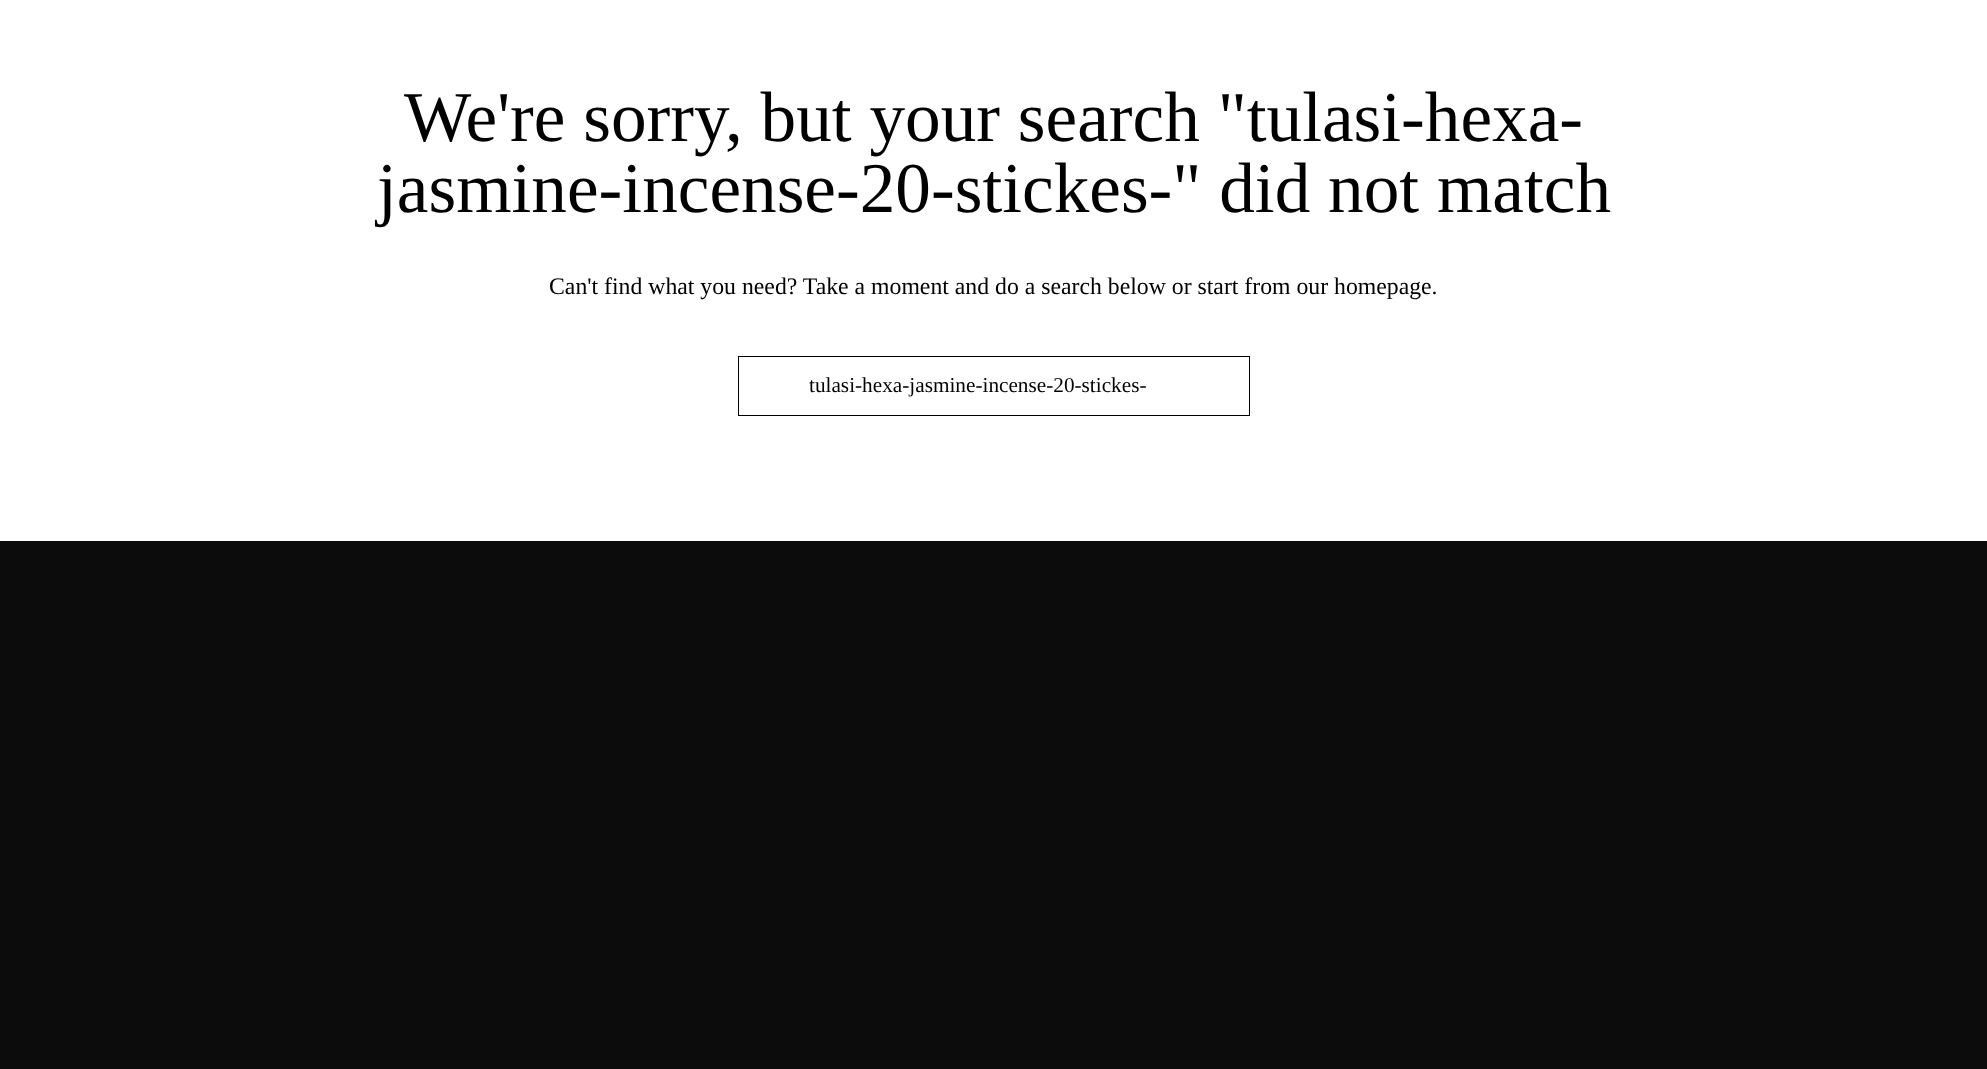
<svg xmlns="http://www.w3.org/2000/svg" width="1987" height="1069">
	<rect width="100%" height="100%" fill="#FFFFFF" />
	<g font-family="Liberation Serif" font-size="71.25" fill="#000000">
		<text x="404" y="141">We're sorry, but your search "tulasi-hexa-</text>
		<text x="377" y="212">jasmine-incense-20-stickes-" did not match</text>
	</g>
	<text x="549" y="294" font-family="Liberation Serif" font-size="23.75" fill="#000000">Can't find what you need? Take a moment and do a search below or start from our homepage.</text>
	<rect x="738.5" y="356.5" width="511" height="59" fill="none" stroke="#000000" />
	<text x="809" y="392" font-family="Liberation Serif" font-size="21.25" fill="#000000">tulasi-hexa-jasmine-incense-20-stickes-</text>
	<rect x="0" y="541" width="1987" height="528" fill="#0C0C0C" />
</svg>
